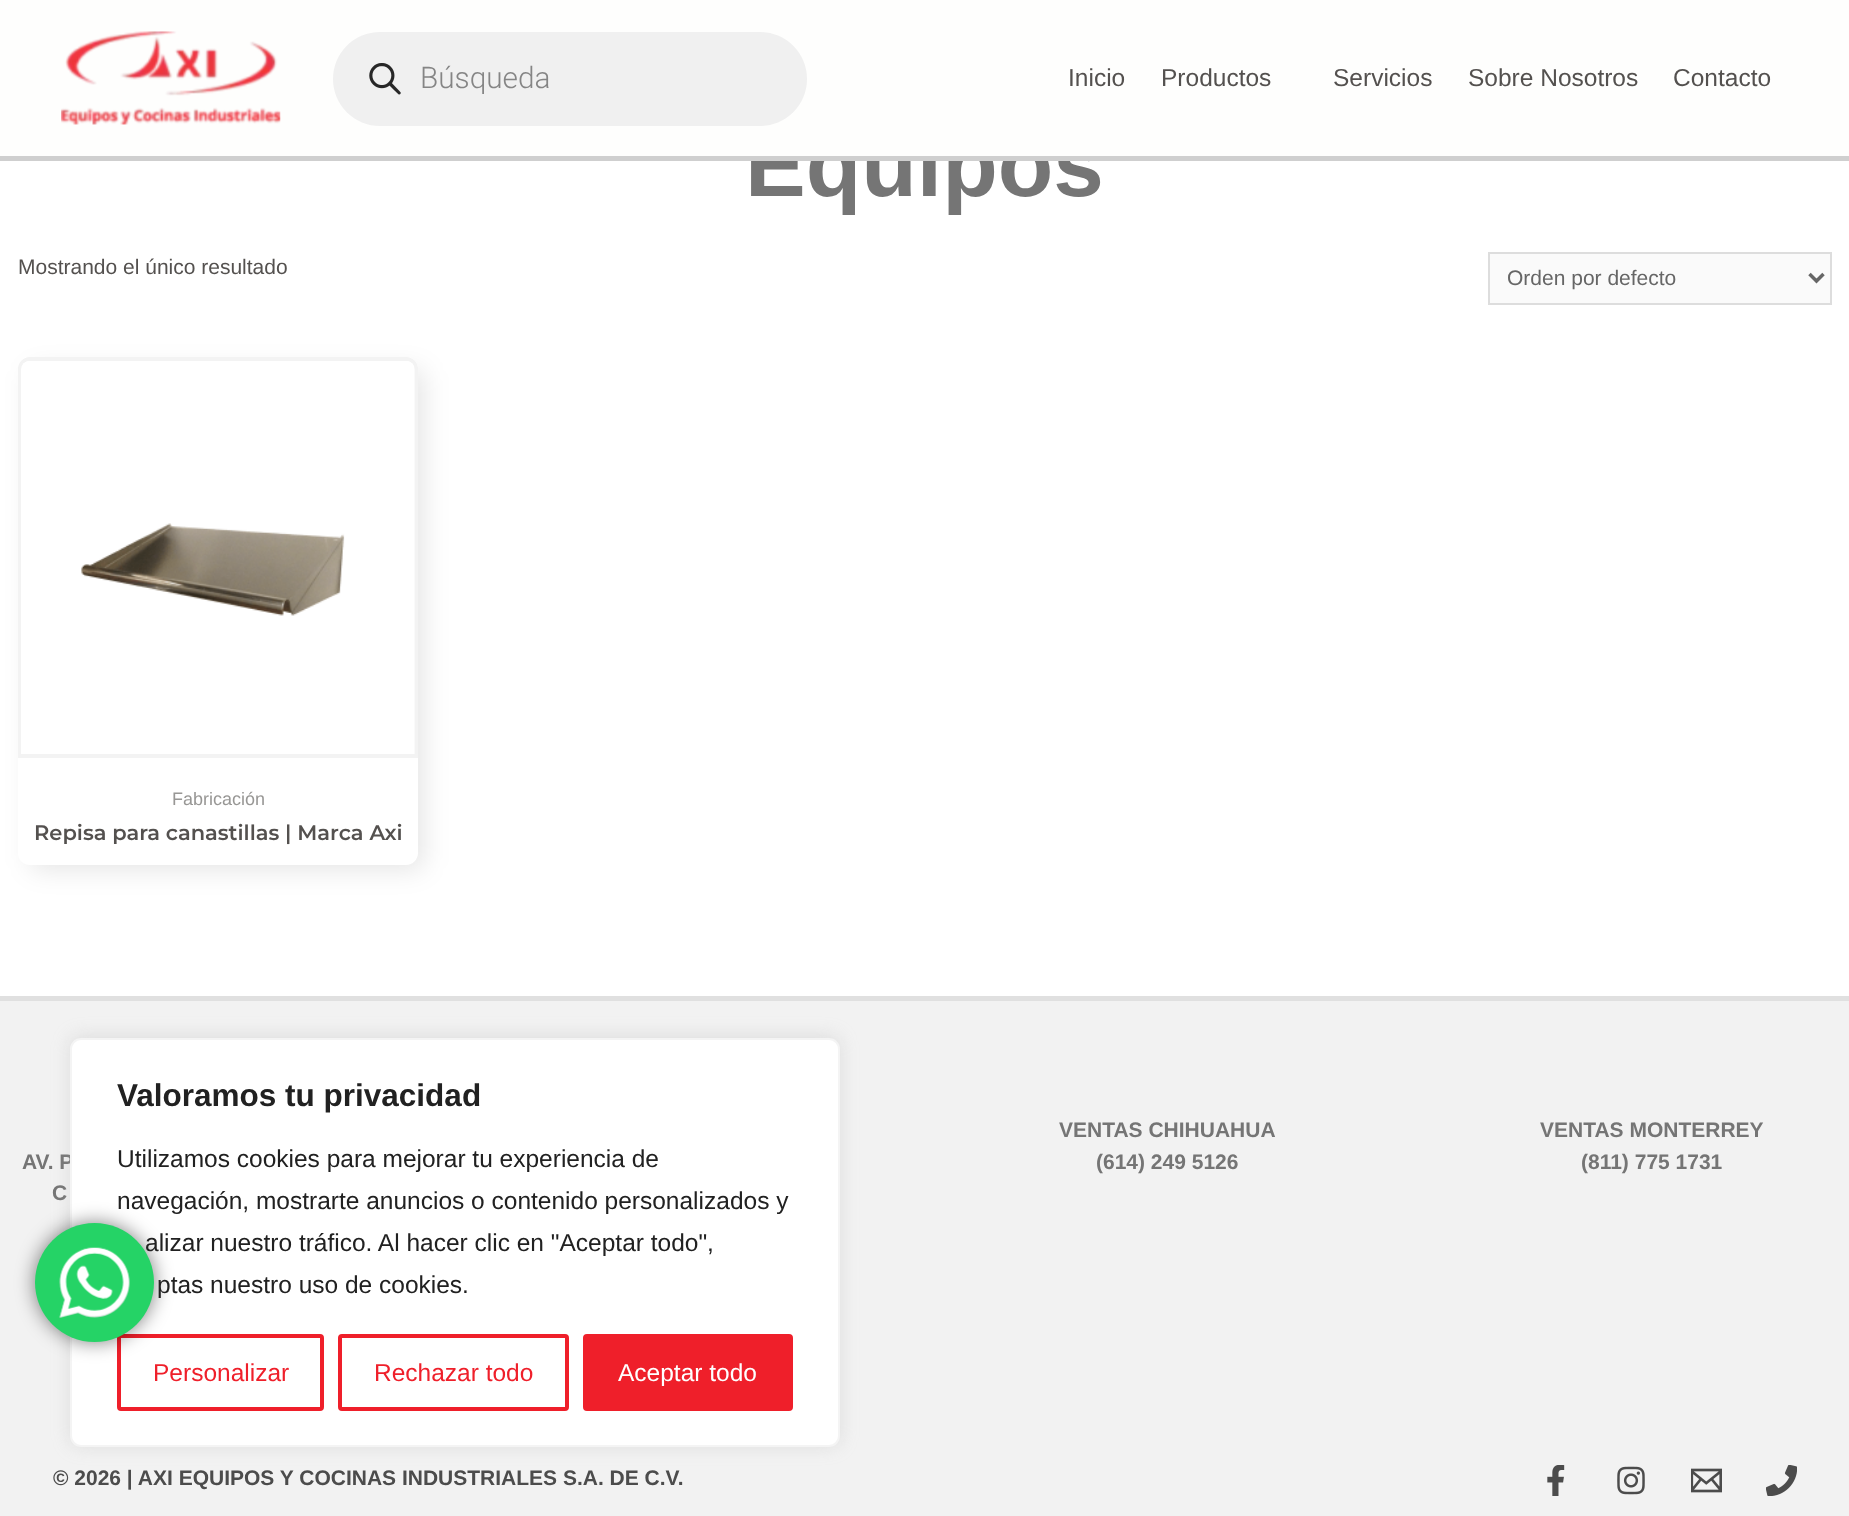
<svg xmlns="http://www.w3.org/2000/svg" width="1849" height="1516">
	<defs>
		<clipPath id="clip1"><path d="M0 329H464V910H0ZM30 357H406C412.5 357 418 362.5 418 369V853C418 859.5 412.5 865 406 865H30C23.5 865 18 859.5 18 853V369C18 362.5 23.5 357 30 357Z" clip-rule="evenodd" /></clipPath>
	</defs>
	<rect width="100%" height="100%" fill="#F2F2F2" />
	<rect x="0" y="161" width="1849" height="835" fill="#FFFFFF" />
	<text x="745" y="196" font-family="Liberation Sans" font-size="91" font-weight="700" fill="#757575">Equipos</text>
	<rect x="0" y="0" width="1849" height="156" fill="#FEFEFD" />
	<rect x="0" y="156" width="1849" height="5" fill="#CFCFCF" />
	<image x="61" y="31" width="220" height="94" href="assets/img1.png" />
	<rect x="333" y="32" width="474" height="94" rx="47" fill="#F0F0F0" />
	<image x="369" y="63" width="32" height="32" href="assets/img2.png" />
	<text x="420" y="88" font-family="Roboto" font-size="29.75" font-weight="300" fill="#858585">Búsqueda</text>
	<g font-family="Liberation Sans" font-size="24.5" fill="#54514F">
		<text x="1068" y="86">Inicio</text>
		<text x="1161" y="86">Productos</text>
		<text x="1333" y="86">Servicios</text>
		<text x="1468" y="86">Sobre Nosotros</text>
		<text x="1673" y="86">Contacto</text>
	</g>
	<text x="18" y="274" font-family="Liberation Sans" font-size="21" fill="#54514F">Mostrando el único resultado</text>
	<rect x="1489" y="253" width="342" height="51" fill="#FAFAFA" stroke="#DDDDDD" stroke-width="2" />
	<path d="M1809.5 274L1816.5 281L1823.5 274" fill="none" stroke="#666666" stroke-width="3.5" />
	<text x="1507" y="285" font-family="Liberation Sans" font-size="21" fill="#666666">Orden por defecto</text>
	<g clip-path="url(#clip1)">
		<rect x="30" y="369" width="394" height="501" rx="9" fill="#000000" fill-opacity="0.1" filter="blur(13px)" />
	</g>
	<path d="M30 359H406C411.5 359 416 363.5 416 369V756H20V369C20 363.5 24.5 359 30 359Z" fill="none" stroke="#F3F3F3" stroke-width="4" />
	<image x="21" y="361" width="394" height="393" href="assets/img3.png" />
	<text x="172" y="805" font-family="Liberation Sans" font-size="18" fill="#989795">Fabricación</text>
	<text x="34" y="840" font-family="Montserrat" font-size="21" font-weight="600" fill="#54514F">Repisa para canastillas | Marca Axi</text>
	<rect x="0" y="996" width="1849" height="5" fill="#E0E0E0" />
	<g font-family="Liberation Sans" font-size="21" font-weight="700" fill="#757575">
		<text x="22" y="1169">AV. P</text>
		<text x="52" y="1200">C</text>
		<text x="1059" y="1137">VENTAS CHIHUAHUA</text>
		<text x="1096" y="1169">(614) 249 5126</text>
		<text x="1540" y="1137">VENTAS MONTERREY</text>
		<text x="1581" y="1169">(811) 775 1731</text>
	</g>
	<text x="53" y="1485" font-family="Liberation Sans" font-size="21" font-weight="700" fill="#4C4C4C">© 2026 | AXI EQUIPOS Y COCINAS INDUSTRIALES S.A. DE C.V.</text>
	<image x="1547" y="1465" width="18" height="31" href="assets/img4.png" />
	<image x="1617" y="1466" width="28" height="29" href="assets/img5.png" />
	<image x="1691" y="1468" width="31" height="25" href="assets/img6.png" />
	<image x="1766" y="1465" width="31" height="31" href="assets/img7.png" />
	<rect x="70" y="1036" width="770" height="410" rx="11" fill="#ACABAB" fill-opacity="0.3" filter="blur(9px)" />
	<rect x="71" y="1039" width="768" height="407" rx="10" fill="#FFFFFF" stroke="#F4F4F4" stroke-width="2" />
	<rect x="119" y="1336" width="203" height="73" rx="2" fill="none" stroke="#EF1F2A" stroke-width="4" />
	<rect x="35" y="1223" width="119" height="119" rx="59.5" fill="#000000" fill-opacity="0.5" filter="blur(9.5px)" />
	<text x="145" y="1251" font-family="Liberation Sans" font-size="24.5" fill="#212121">alizar nuestro tráfico. Al hacer clic en "Aceptar todo",</text>
	<circle cx="94.5" cy="1282.5" r="59.5" fill="#25D366" />
	<image x="59" y="1247" width="71" height="71" href="assets/img8.png" />
	<text x="117" y="1106" font-family="Liberation Sans" font-size="31.5" font-weight="700" fill="#212121">Valoramos tu privacidad</text>
	<g font-family="Liberation Sans" font-size="24.5" fill="#212121">
		<text x="117" y="1167">Utilizamos cookies para mejorar tu experiencia de</text>
		<text x="117" y="1209">navegación, mostrarte anuncios o contenido personalizados y</text>
		<text x="157" y="1293">ptas nuestro uso de cookies.</text>
	</g>
	<text x="153" y="1381" font-family="Liberation Sans" font-size="24.5" fill="#EF1F2A">Personalizar</text>
	<rect x="340" y="1336" width="227" height="73" rx="2" fill="none" stroke="#EF1F2A" stroke-width="4" />
	<text x="374" y="1381" font-family="Liberation Sans" font-size="24.5" fill="#EF1F2A">Rechazar todo</text>
	<rect x="585" y="1336" width="206" height="73" rx="2" fill="#EF1F2A" stroke="#EF1F2A" stroke-width="4" />
	<text x="618" y="1381" font-family="Liberation Sans" font-size="24.5" fill="#FFFFFF">Aceptar todo</text>
</svg>
